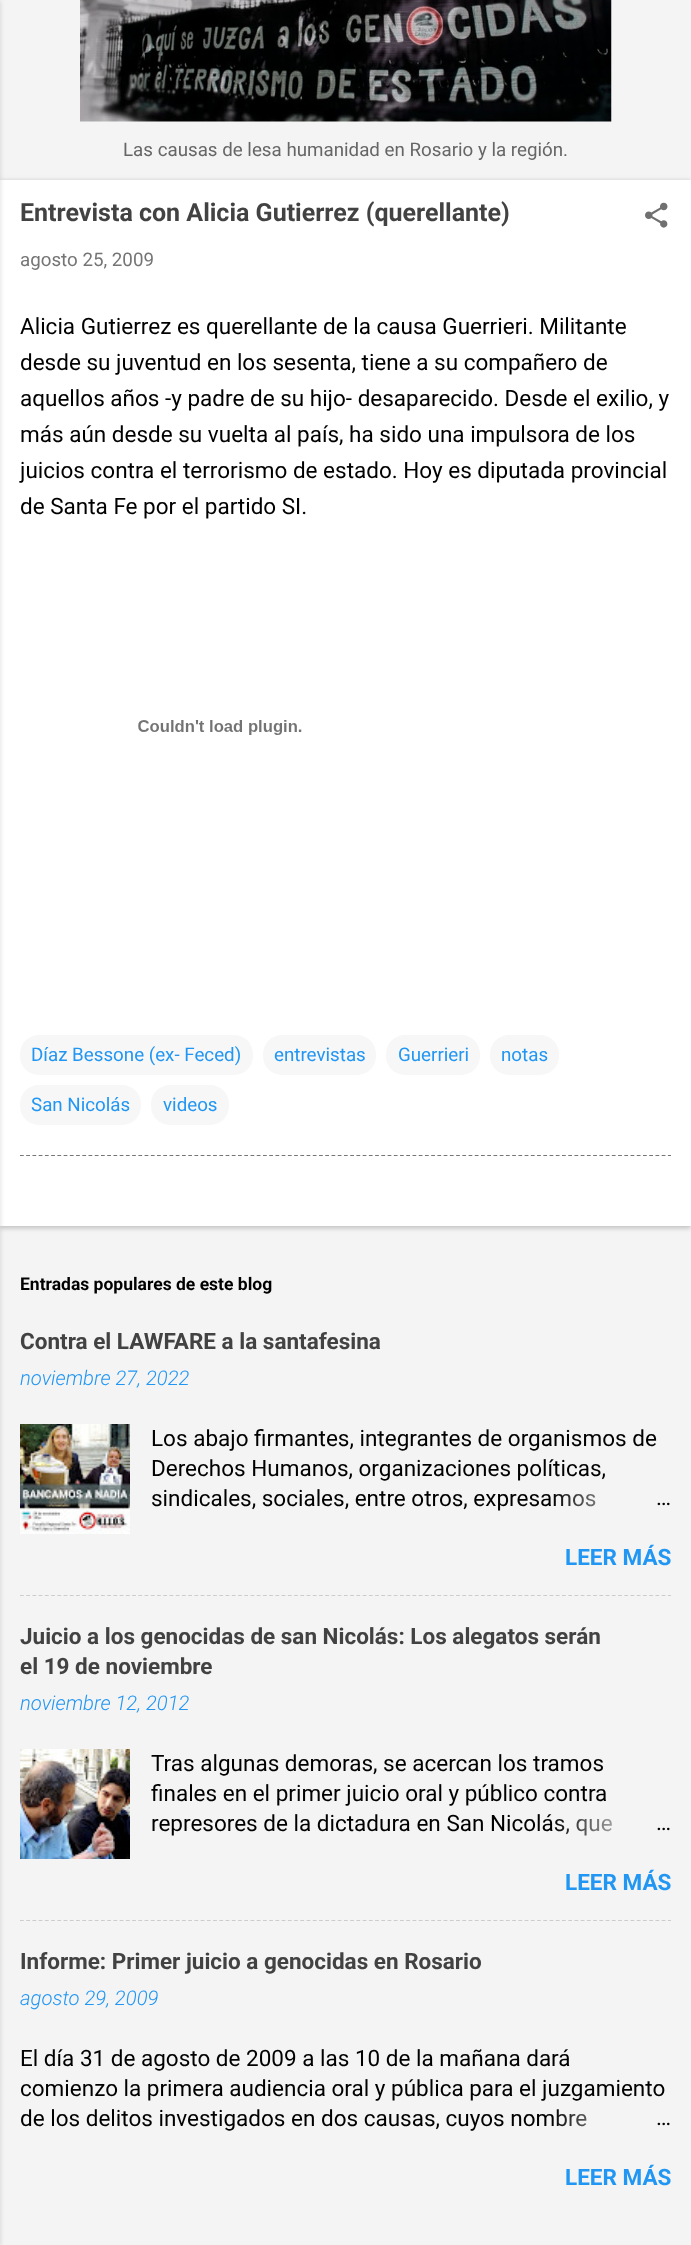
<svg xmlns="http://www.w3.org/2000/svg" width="691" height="2245">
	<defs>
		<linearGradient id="g1" gradientUnits="userSpaceOnUse" x1="671" y1="1499" x2="551" y2="1499"><stop offset="0" stop-color="#F4F4F4" /><stop offset="0.2" stop-color="#F4F4F4" /><stop offset="1" stop-color="#F4F4F4" stop-opacity="0" /></linearGradient>
		<linearGradient id="g2" gradientUnits="userSpaceOnUse" x1="671" y1="1824" x2="551" y2="1824"><stop offset="0" stop-color="#F4F4F4" /><stop offset="0.2" stop-color="#F4F4F4" /><stop offset="1" stop-color="#F4F4F4" stop-opacity="0" /></linearGradient>
		<linearGradient id="g3" gradientUnits="userSpaceOnUse" x1="671" y1="2119" x2="551" y2="2119"><stop offset="0" stop-color="#F4F4F4" /><stop offset="0.2" stop-color="#F4F4F4" /><stop offset="1" stop-color="#F4F4F4" stop-opacity="0" /></linearGradient>
	</defs>
	<rect width="100%" height="100%" fill="#F4F4F4" />
	<rect x="0" y="181" width="691" height="1047" fill="#3C4043" fill-opacity="0.3" filter="blur(2.5px)" />
	<rect x="0" y="180" width="691" height="1046" fill="#FFFFFF" />
	<rect x="-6" y="1" width="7" height="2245" fill="#000000" fill-opacity="0.1" filter="blur(2px)" />
	<image x="80" y="0" width="532" height="122" href="assets/img1.png" />
	<text x="123" y="156" font-family="Roboto" font-size="18.75" fill="#666666">Las causas de lesa humanidad en Rosario y la región.</text>
	<text x="20" y="221" font-family="Roboto" font-size="25" font-weight="700" fill="#424242">Entrevista con Alicia Gutierrez (querellante)</text>
	<image x="645" y="202" width="23" height="26" href="assets/img2.png" />
	<text x="20" y="266" font-family="Roboto" font-size="18.75" fill="#757575">agosto 25, 2009</text>
	<g font-family="Roboto" font-size="22.5" fill="#000000">
		<text x="20" y="334">Alicia Gutierrez es querellante de la causa Guerrieri. Militante</text>
		<text x="20" y="370">desde su juventud en los sesenta, tiene a su compañero de</text>
		<text x="20" y="406">aquellos años -y padre de su hijo- desaparecido. Desde el exilio, y</text>
		<text x="20" y="442">más aún desde su vuelta al país, ha sido una impulsora de los</text>
		<text x="20" y="478">juicios contra el terrorismo de estado. Hoy es diputada provincial</text>
		<text x="20" y="514">de Santa Fe por el partido SI.</text>
	</g>
	<image x="138" y="720" width="164" height="15" href="assets/img3.png" />
	<rect x="20" y="1035" width="233" height="40" rx="19" fill="#F7F7F7" />
	<text x="31" y="1061" font-family="Roboto" font-size="18.75" fill="#2196F3">Díaz Bessone (ex- Feced)</text>
	<rect x="263" y="1035" width="113" height="40" rx="19" fill="#F7F7F7" />
	<text x="274" y="1061" font-family="Roboto" font-size="18.75" fill="#2196F3">entrevistas</text>
	<rect x="386" y="1035" width="94" height="40" rx="19" fill="#F7F7F7" />
	<text x="398" y="1061" font-family="Roboto" font-size="18.75" fill="#2196F3">Guerrieri</text>
	<rect x="490" y="1035" width="69" height="40" rx="19" fill="#F7F7F7" />
	<text x="501" y="1061" font-family="Roboto" font-size="18.75" fill="#2196F3">notas</text>
	<rect x="20" y="1085" width="121" height="40" rx="19" fill="#F7F7F7" />
	<text x="31" y="1111" font-family="Roboto" font-size="18.75" fill="#2196F3">San Nicolás</text>
	<rect x="151" y="1085" width="78" height="40" rx="19" fill="#F7F7F7" />
	<text x="163" y="1111" font-family="Roboto" font-size="18.75" fill="#2196F3">videos</text>
	<path d="M20 1155.5H671" fill="none" stroke="#757575" stroke-width="1.2" stroke-dasharray="3.75 2.48" />
	<text x="20" y="1290" font-family="Roboto" font-size="17.5" font-weight="700" fill="#000000">Entradas populares de este blog</text>
	<text x="20" y="1349" font-family="Roboto" font-size="22.5" font-weight="700" fill="#424242">Contra el LAWFARE a la santafesina</text>
	<text x="20" y="1385" font-family="Roboto" font-size="20.25" font-weight="300" font-style="italic" fill="#2196F3">noviembre 27, 2022</text>
	<image x="20" y="1424" width="110" height="110" href="assets/img4.png" />
	<g font-family="Roboto" font-size="22.5" fill="#000000">
		<text x="151" y="1446">Los abajo firmantes, integrantes de organismos de</text>
		<text x="151" y="1476">Derechos Humanos, organizaciones políticas,</text>
		<text x="151" y="1506">sindicales, sociales, entre otros, expresamos</text>
	</g>
	<rect x="554" y="1493" width="42" height="14" fill="url(#g1)" />
	<text x="656" y="1505" font-family="Roboto" font-size="22.5" fill="#000000">…</text>
	<text x="565" y="1565" font-family="Roboto" font-size="22.5" font-weight="700" fill="#2196F3">LEER MÁS</text>
	<path d="M20 1595.5H671" fill="none" stroke="#CCCCCC" stroke-width="1.2" stroke-dasharray="3.75 2.48" />
	<g font-family="Roboto" font-size="22.5" font-weight="700" fill="#424242">
		<text x="20" y="1644">Juicio a los genocidas de san Nicolás: Los alegatos serán</text>
		<text x="20" y="1674">el 19 de noviembre</text>
	</g>
	<text x="20" y="1710" font-family="Roboto" font-size="20.25" font-weight="300" font-style="italic" fill="#2196F3">noviembre 12, 2012</text>
	<image x="20" y="1749" width="110" height="110" href="assets/img5.png" />
	<g font-family="Roboto" font-size="22.5" fill="#000000">
		<text x="151" y="1771">Tras algunas demoras, se acercan los tramos</text>
		<text x="151" y="1801">finales en el primer juicio oral y público contra</text>
		<text x="151" y="1831">represores de la dictadura en San Nicolás, que</text>
	</g>
	<rect x="555" y="1818" width="57" height="18" fill="url(#g2)" />
	<text x="656" y="1830" font-family="Roboto" font-size="22.5" fill="#000000">…</text>
	<text x="565" y="1890" font-family="Roboto" font-size="22.5" font-weight="700" fill="#2196F3">LEER MÁS</text>
	<path d="M20 1920.5H671" fill="none" stroke="#CCCCCC" stroke-width="1.2" stroke-dasharray="3.75 2.48" />
	<text x="20" y="1969" font-family="Roboto" font-size="22.5" font-weight="700" fill="#424242">Informe: Primer juicio a genocidas en Rosario</text>
	<text x="20" y="2005" font-family="Roboto" font-size="20.25" font-weight="300" font-style="italic" fill="#2196F3">agosto 29, 2009</text>
	<g font-family="Roboto" font-size="22.5" fill="#000000">
		<text x="20" y="2066">El día 31 de agosto de 2009 a las 10 de la mañana dará</text>
		<text x="20" y="2096">comienzo la primera audiencia oral y pública para el juzgamiento</text>
		<text x="20" y="2126">de los delitos investigados en dos causas, cuyos nombre</text>
	</g>
	<rect x="553" y="2109" width="34" height="18" fill="url(#g3)" />
	<text x="656" y="2125" font-family="Roboto" font-size="22.5" fill="#000000">…</text>
	<text x="565" y="2185" font-family="Roboto" font-size="22.5" font-weight="700" fill="#2196F3">LEER MÁS</text>
</svg>
